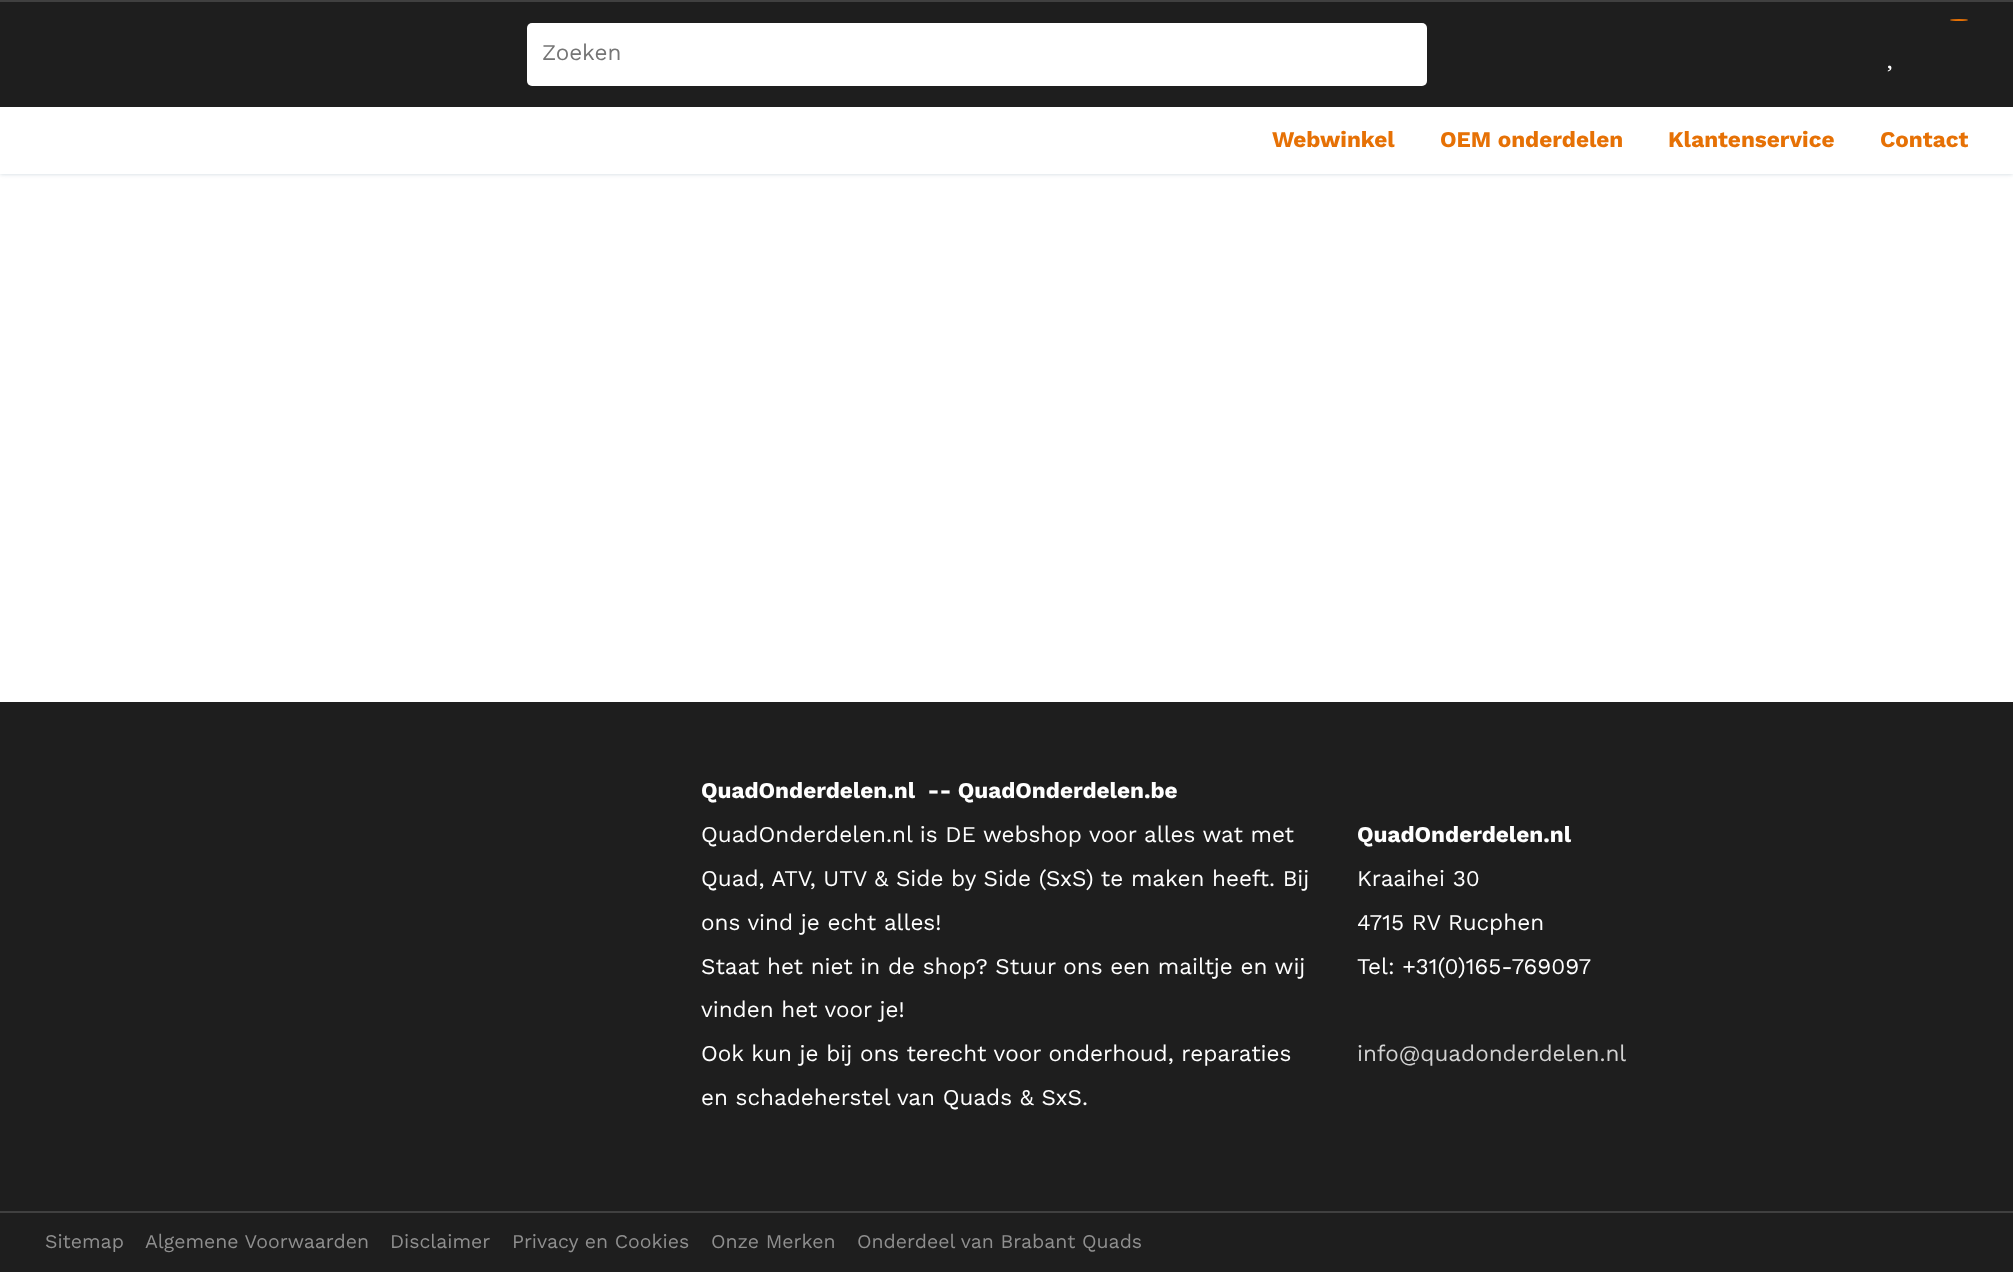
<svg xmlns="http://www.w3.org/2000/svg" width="2013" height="1272">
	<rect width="100%" height="100%" fill="#FFFFFF" />
	<rect x="0" y="0" width="2013" height="174" fill="#003152" fill-opacity="0.2" filter="blur(2px)" />
	<rect x="0" y="0" width="2013" height="2" fill="#404040" />
	<rect x="0" y="2" width="2013" height="105" fill="#1E1E1E" />
	<rect x="527" y="23" width="900" height="63" rx="5" fill="#FFFFFF" />
	<text x="542" y="60" font-family="Work Sans" font-size="22.5" fill="#757575">Zoeken</text>
	<ellipse cx="1959" cy="20" rx="9" ry="1" fill="#E67105" />
	<image x="1887" y="65" width="5" height="7" href="assets/img1.png" />
	<rect x="0" y="107" width="2013" height="67" fill="#FFFFFF" />
	<g font-family="Work Sans" font-size="22.5" font-weight="700" fill="#E67105">
		<text x="1272" y="147">Webwinkel</text>
		<text x="1440" y="147">OEM onderdelen</text>
		<text x="1668" y="147">Klantenservice</text>
		<text x="1880" y="147">Contact</text>
	</g>
	<rect x="0" y="702" width="2013" height="509" fill="#1E1E1E" />
	<text x="701" y="798" font-family="Work Sans" font-size="22.5" font-weight="700" fill="#FFFFFF" xml:space="preserve">QuadOnderdelen.nl  -- QuadOnderdelen.be</text>
	<g font-family="Work Sans" font-size="22.5" fill="#FFFFFF">
		<text x="701" y="842">QuadOnderdelen.nl is DE webshop voor alles wat met</text>
		<text x="701" y="886">Quad, ATV, UTV &amp; Side by Side (SxS) te maken heeft. Bij</text>
		<text x="701" y="930">ons vind je echt alles!</text>
		<text x="701" y="974">Staat het niet in de shop? Stuur ons een mailtje en wij</text>
		<text x="701" y="1017">vinden het voor je!</text>
		<text x="701" y="1061">Ook kun je bij ons terecht voor onderhoud, reparaties</text>
		<text x="701" y="1105">en schadeherstel van Quads &amp; SxS.</text>
	</g>
	<text x="1357" y="842" font-family="Work Sans" font-size="22.5" font-weight="700" fill="#FFFFFF">QuadOnderdelen.nl</text>
	<g font-family="Work Sans" font-size="22.5" fill="#FFFFFF">
		<text x="1357" y="886">Kraaihei 30</text>
		<text x="1357" y="930">4715 RV Rucphen</text>
		<text x="1357" y="974">Tel: +31(0)165-769097</text>
	</g>
	<text x="1357" y="1061" font-family="Work Sans" font-size="22.5" fill="#D2D2D2">info@quadonderdelen.nl</text>
	<rect x="0" y="1213" width="2013" height="59" fill="#1E1E1E" />
	<rect x="0" y="1211" width="2013" height="2" fill="#404040" />
	<g font-family="Work Sans" font-size="19.5" fill="#8F8F8F">
		<text x="45" y="1248">Sitemap</text>
		<text x="145" y="1248">Algemene Voorwaarden</text>
		<text x="390" y="1248">Disclaimer</text>
		<text x="512" y="1248">Privacy en Cookies</text>
		<text x="711" y="1248">Onze Merken</text>
		<text x="857" y="1248">Onderdeel van Brabant Quads</text>
	</g>
</svg>
